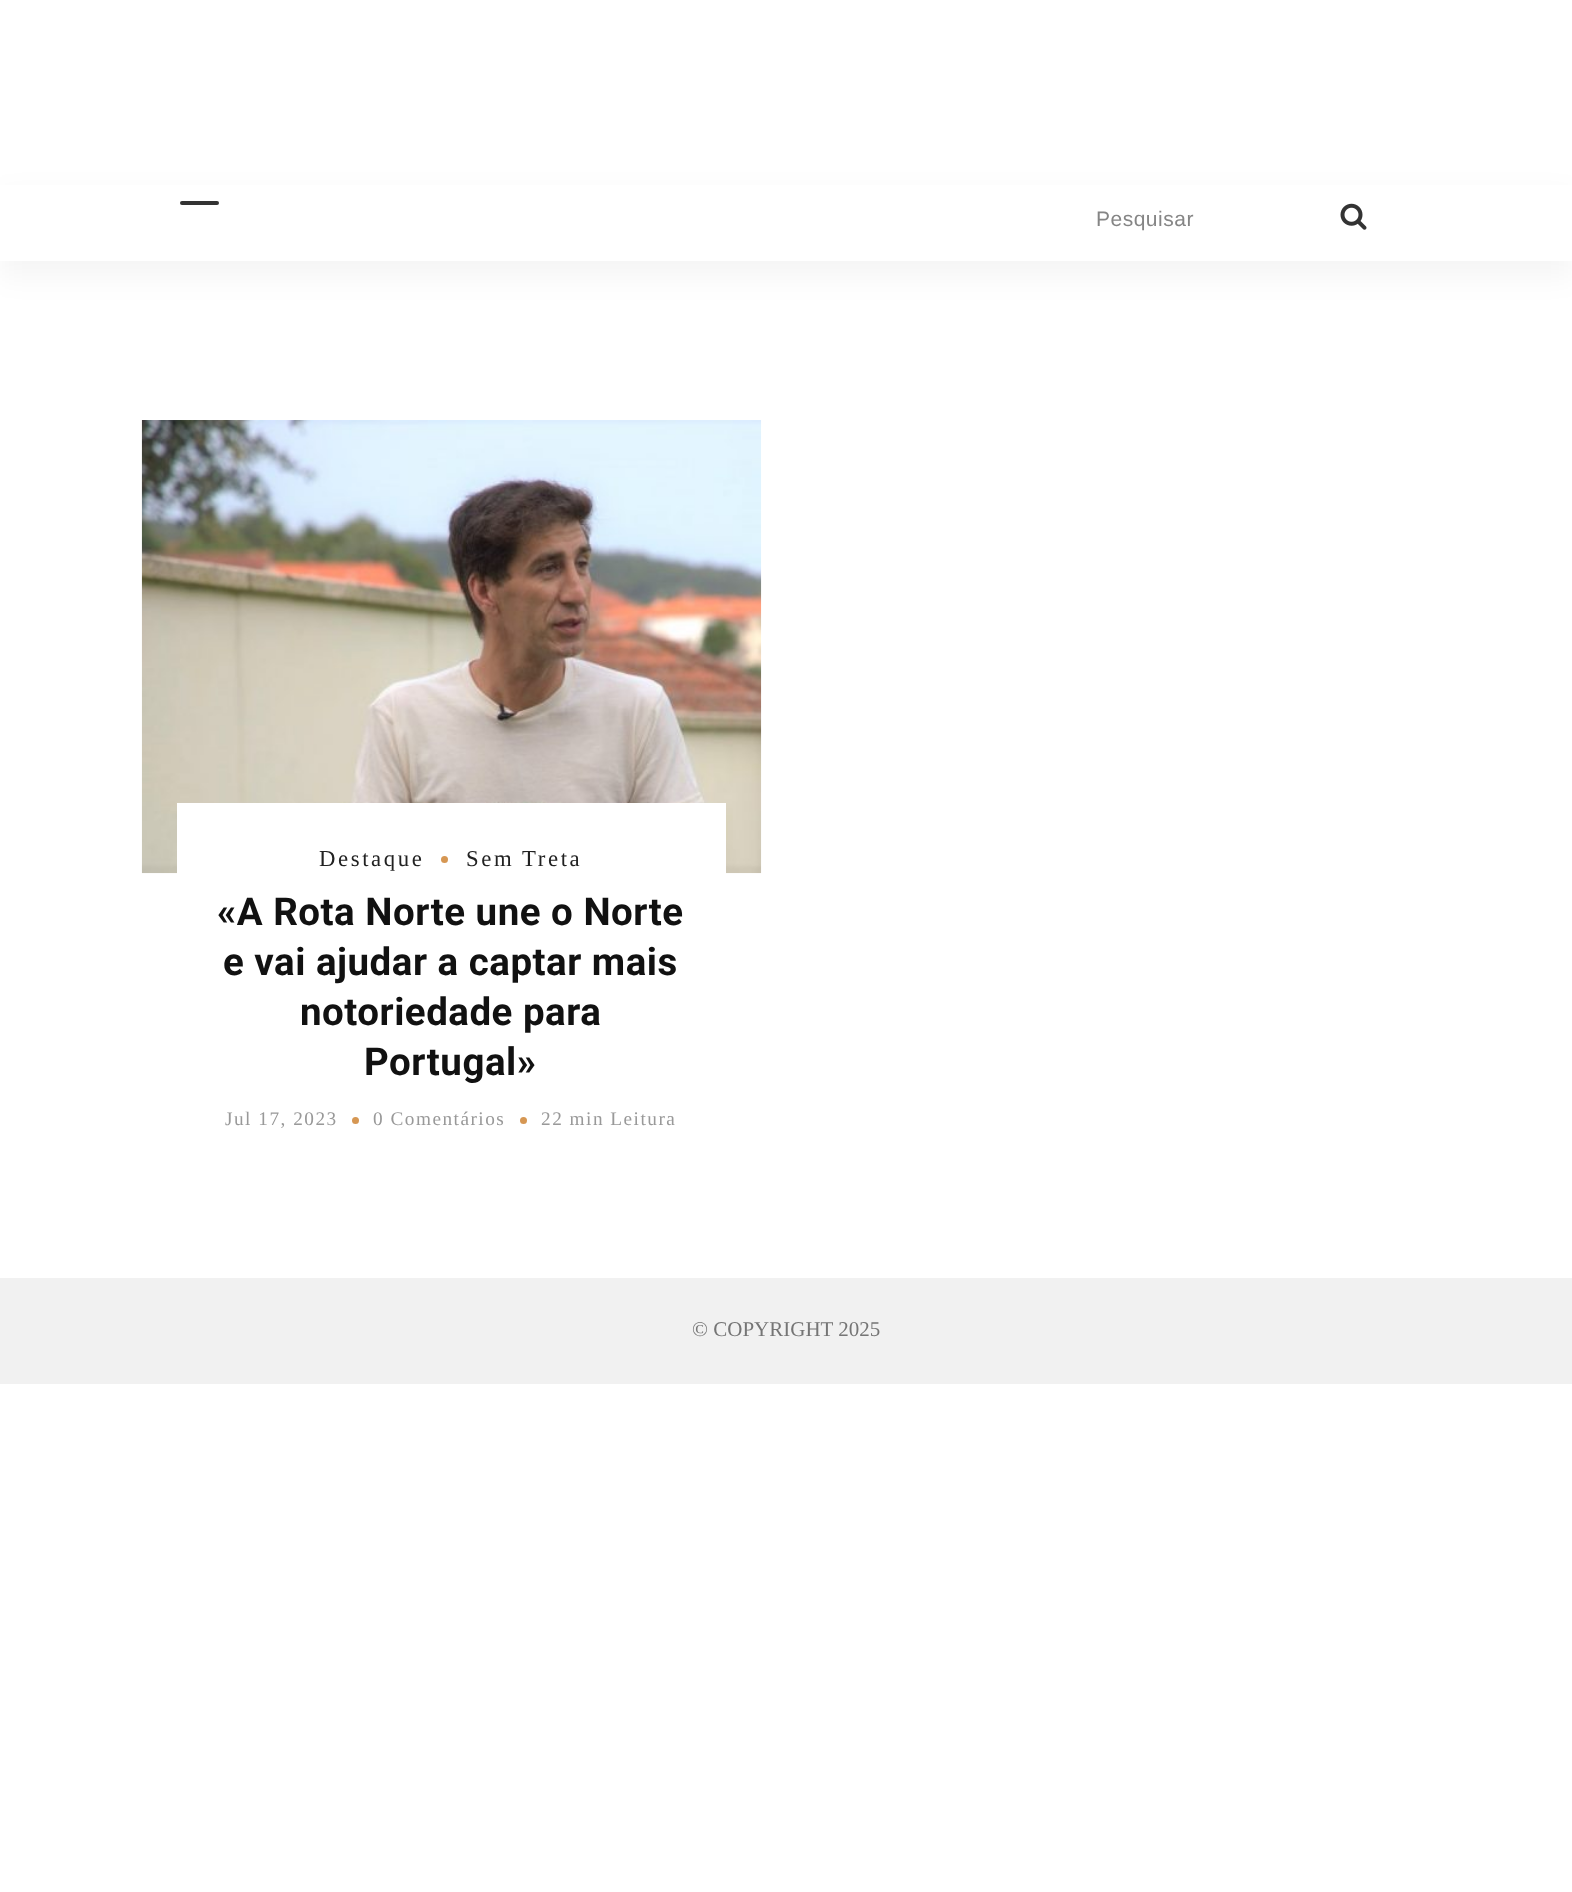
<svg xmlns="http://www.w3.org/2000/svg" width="1572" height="1892">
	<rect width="100%" height="100%" fill="#FFFFFF" />
	<rect x="0" y="194" width="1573" height="84" fill="#000000" fill-opacity="0.04" filter="blur(14px)" />
	<rect x="0" y="185" width="1572" height="76" fill="#FFFFFF" />
	<rect x="180" y="201" width="39" height="4" rx="2" fill="#333333" />
	<text x="1096" y="226" font-family="Liberation Sans" font-size="21" letter-spacing="0.5" fill="#858585">Pesquisar</text>
	<image x="1340" y="203" width="27" height="27" href="assets/img1.png" />
	<image x="141" y="420" width="621" height="454" href="assets/img2.png" />
	<rect x="177" y="803" width="549" height="71" fill="#FFFFFF" />
	<text x="319" y="866" font-family="Liberation Serif" font-size="22.75" letter-spacing="2.6" fill="#222222">Destaque</text>
	<circle cx="444.5" cy="859.5" r="3.5" fill="#D69753" />
	<text x="466" y="866" font-family="Liberation Serif" font-size="22.75" letter-spacing="2.6" fill="#222222">Sem Treta</text>
	<g font-family="Roboto" font-size="38.5" font-weight="700" letter-spacing="0.5" fill="#111111">
		<text x="217" y="925">«A Rota Norte une o Norte</text>
		<text x="223" y="975">e vai ajudar a captar mais</text>
		<text x="300" y="1025">notoriedade para</text>
		<text x="364" y="1075">Portugal»</text>
	</g>
	<text x="225" y="1125" font-family="Liberation Serif" font-size="19.25" letter-spacing="1.5" fill="#999999">Jul 17, 2023</text>
	<circle cx="355.5" cy="1120.5" r="3.5" fill="#D69753" />
	<text x="373" y="1125" font-family="Liberation Serif" font-size="19.25" letter-spacing="1.5" fill="#999999">0 Comentários</text>
	<circle cx="523.5" cy="1120.5" r="3.5" fill="#D69753" />
	<text x="541" y="1125" font-family="Liberation Serif" font-size="19.25" letter-spacing="1.5" fill="#999999">22 min Leitura</text>
	<rect x="0" y="1278" width="1572" height="106" fill="#F1F1F1" />
	<text x="692" y="1336" font-family="Liberation Serif" font-size="21" fill="#757575">© COPYRIGHT 2025</text>
</svg>
